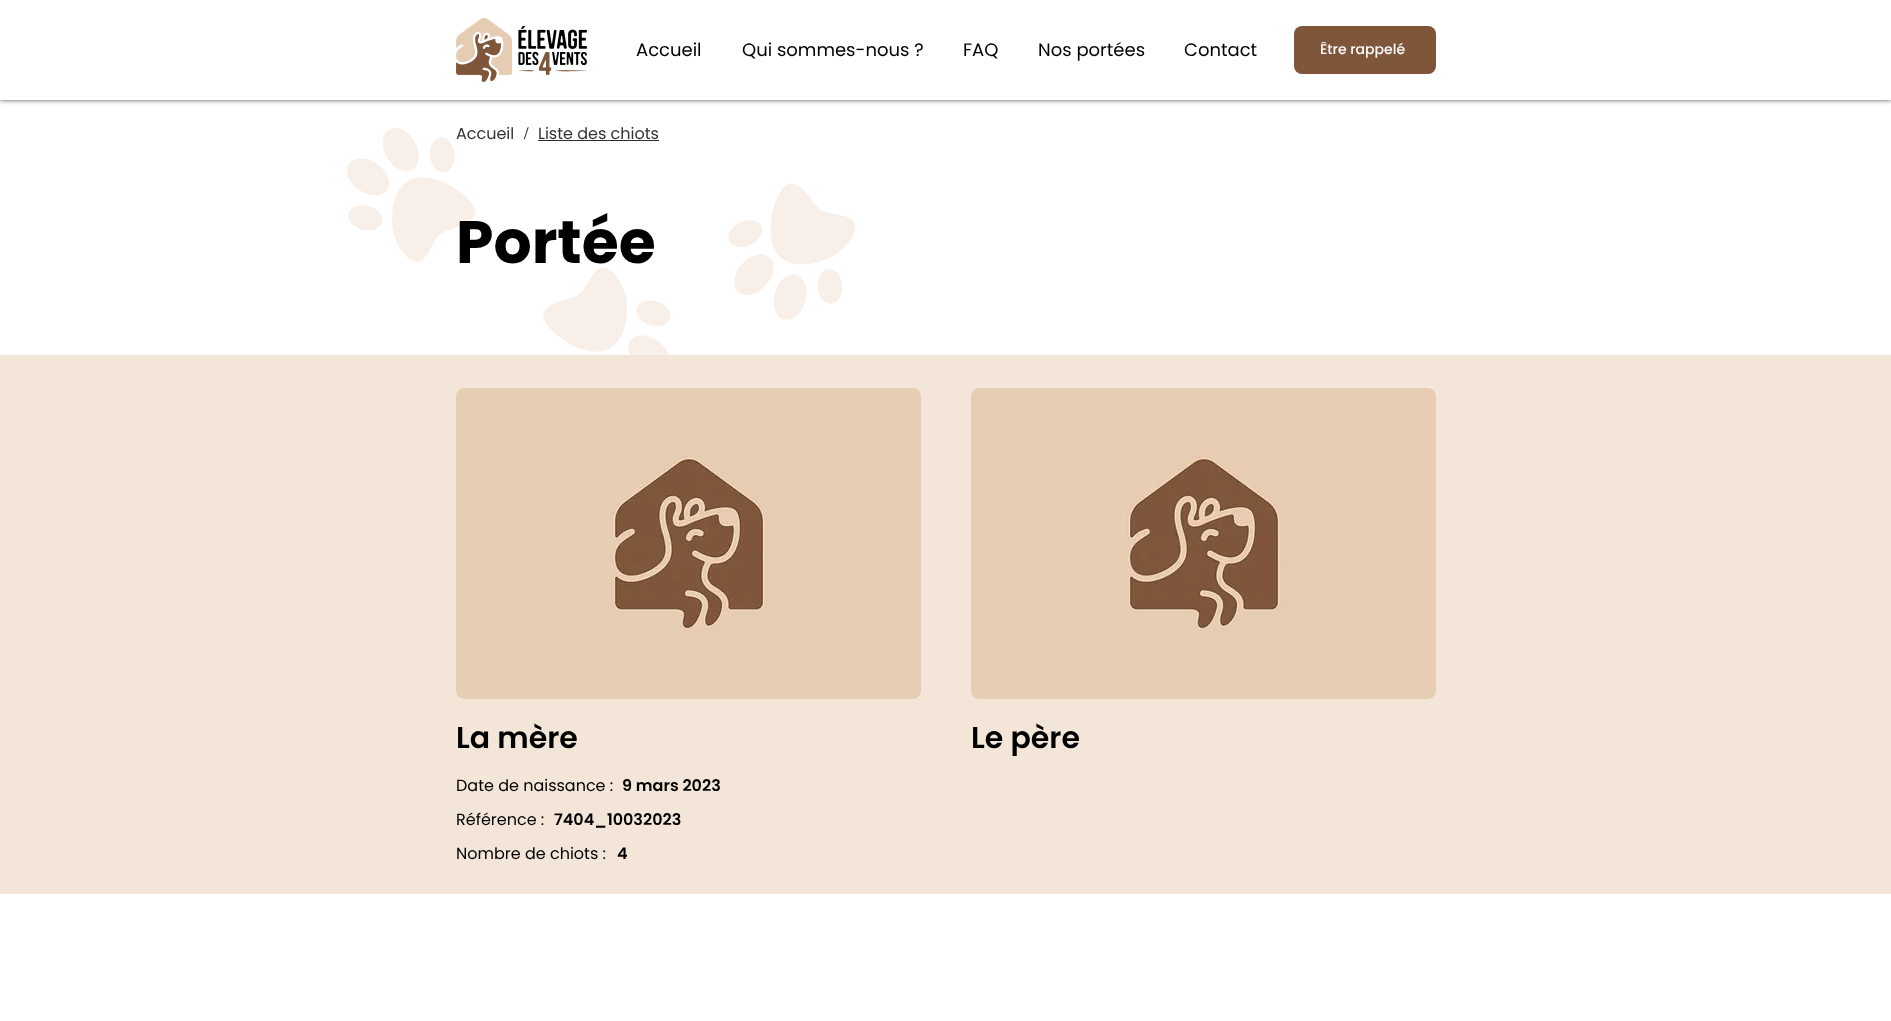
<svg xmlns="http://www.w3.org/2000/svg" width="1891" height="1021">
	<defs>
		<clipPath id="clip1"><rect x="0" y="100" width="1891" height="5" /></clipPath>
		<clipPath id="clip2"><rect x="1320" y="42" width="85" height="16" /></clipPath>
	</defs>
	<rect width="100%" height="100%" fill="#FFFFFF" />
	<g clip-path="url(#clip1)">
		<rect x="0" y="0" width="1891" height="100" fill="#000000" fill-opacity="0.7" filter="blur(2.5px)" />
	</g>
	<image x="456" y="18" width="131" height="64" href="assets/img1.png" />
	<g font-family="Poppins" font-size="18" fill="#000000">
		<text x="636" y="56">Accueil</text>
		<text x="742" y="56">Qui sommes-nous ?</text>
		<text x="963" y="56">FAQ</text>
		<text x="1038" y="56">Nos portées</text>
		<text x="1184" y="56">Contact</text>
	</g>
	<rect x="1294" y="26" width="142" height="48" rx="8" fill="#7F563A" />
	<g clip-path="url(#clip2)">
		<text x="1320" y="54" font-family="Poppins" font-size="14" font-weight="500" fill="#FFFFFF">Être rappelé</text>
	</g>
	<image x="347" y="128" width="508" height="227" href="assets/img2.png" />
	<text x="456" y="139" font-family="Poppins" font-size="16" fill="#323232">Accueil</text>
	<text x="524" y="139" font-family="helvetica" font-size="16" fill="#323232">/</text>
	<text x="538" y="139" font-family="Poppins" font-size="16" fill="#323232">Liste des chiots</text>
	<rect x="538" y="140" width="121" height="1" fill="#2F2E2E" />
	<text x="456" y="263" font-family="Poppins" font-size="60" font-weight="700" fill="#000000">Portée</text>
	<rect x="0" y="355" width="1891" height="539" fill="#F3E5D7" />
	<rect x="456" y="388" width="465" height="311" rx="8" fill="#FFFFFF" />
	<image x="456" y="388" width="465" height="311" href="assets/img3.png" />
	<rect x="971" y="388" width="465" height="311" rx="8" fill="#FFFFFF" />
	<image x="971" y="388" width="465" height="311" href="assets/img3.png" />
	<g font-family="Poppins" font-size="30" font-weight="600" fill="#000000">
		<text x="456" y="748">La mère</text>
		<text x="971" y="748">Le père</text>
	</g>
	<text x="456" y="791" font-family="Poppins" font-size="16" fill="#000000">Date de naissance :</text>
	<text x="622" y="791" font-family="Poppins" font-size="16" font-weight="600" fill="#000000">9 mars 2023</text>
	<text x="456" y="825" font-family="Poppins" font-size="16" fill="#000000">Référence :</text>
	<text x="554" y="825" font-family="Poppins" font-size="16" font-weight="600" fill="#000000">7404_10032023</text>
	<text x="456" y="859" font-family="Poppins" font-size="16" fill="#000000">Nombre de chiots :</text>
	<text x="617" y="859" font-family="Poppins" font-size="16" font-weight="600" fill="#000000">4</text>
</svg>
